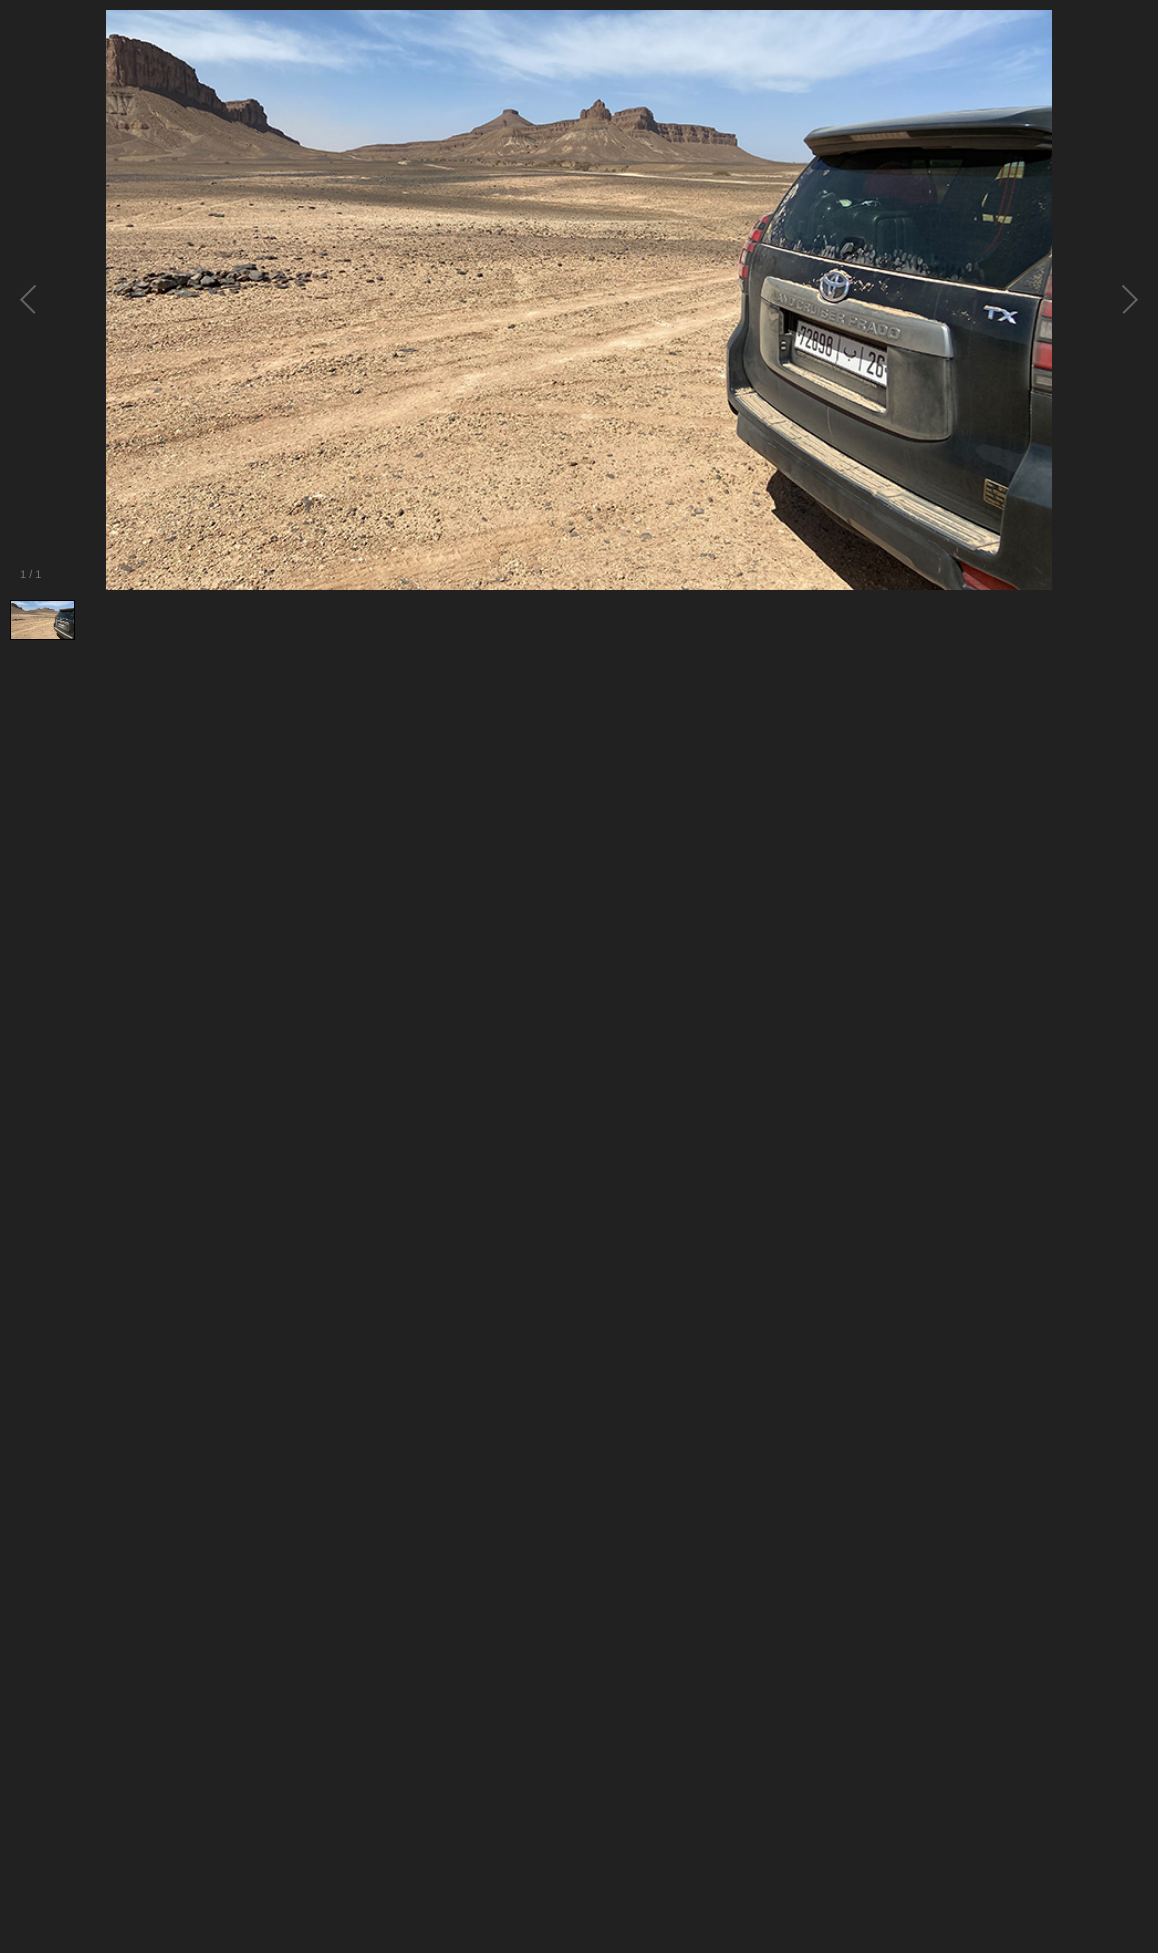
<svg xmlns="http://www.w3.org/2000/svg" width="1158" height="1953">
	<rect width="100%" height="100%" fill="#212121" />
	<image x="106" y="10" width="946" height="580" href="assets/img1.png" />
	<image x="20" y="285" width="16" height="29" href="assets/img2.png" />
	<image x="1122" y="285" width="16" height="29" href="assets/img3.png" />
	<text x="20" y="578" font-family="Liberation Sans" font-size="11" fill="#7A7A7A">1 / 1</text>
	<rect x="10" y="600" width="65" height="40" fill="#000000" />
	<image x="11" y="601" width="63" height="38" href="assets/img4.png" />
</svg>
